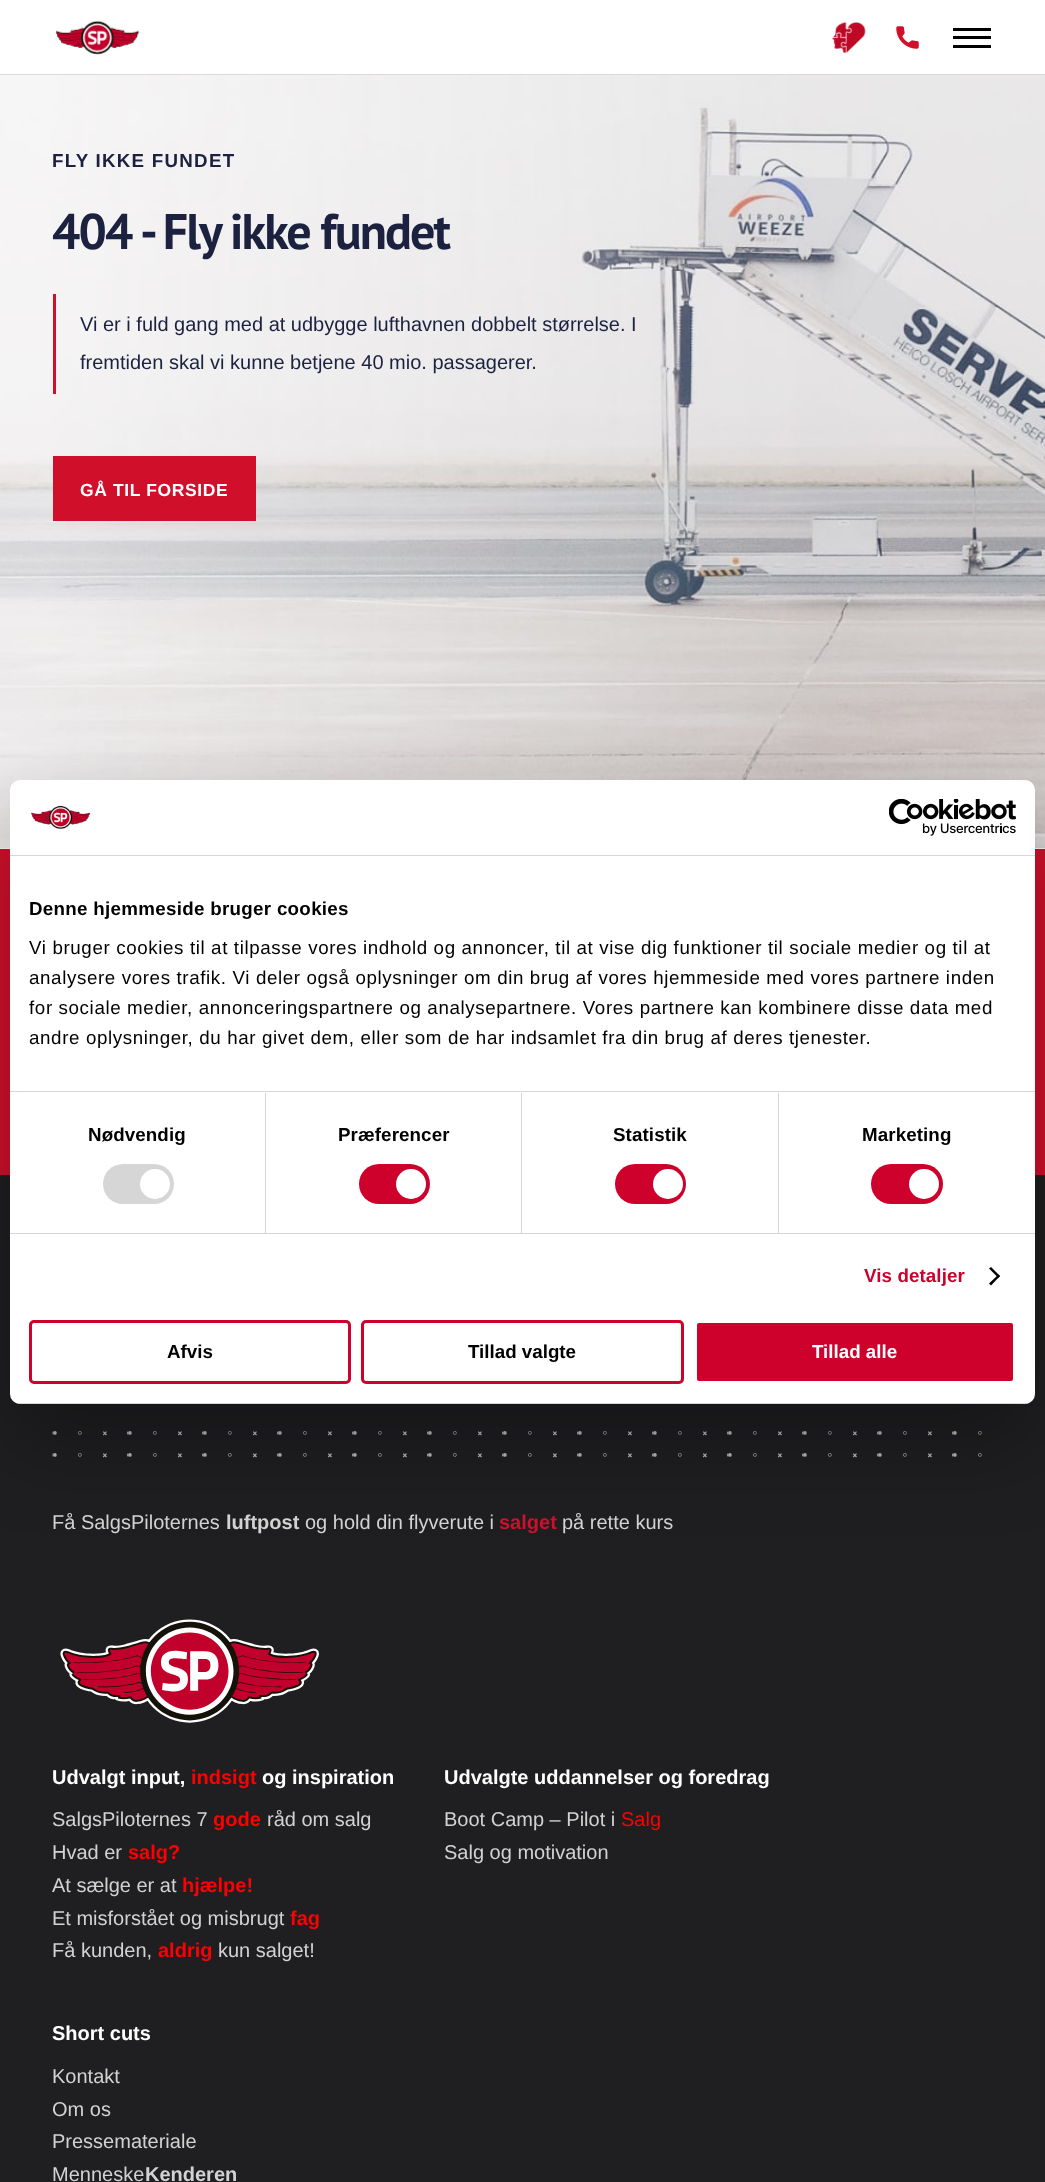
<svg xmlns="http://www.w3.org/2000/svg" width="1045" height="2182">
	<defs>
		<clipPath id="clip1"><rect x="10" y="780" width="1025" height="624" rx="10" /></clipPath>
	</defs>
	<rect width="100%" height="100%" fill="#FFFFFF" />
	<rect x="0" y="74" width="1045" height="1" fill="#DADADA" />
	<image x="55" y="20" width="85" height="35" href="assets/img1.png" />
	<image x="832" y="21" width="34" height="33" href="assets/img2.png" />
	<image x="896" y="26" width="23" height="23" href="assets/img3.png" />
	<rect x="953" y="28" width="38" height="3" fill="#000000" />
	<rect x="953" y="36" width="38" height="3" fill="#000000" />
	<rect x="953" y="45" width="38" height="3" fill="#000000" />
	<image x="0" y="75" width="1045" height="774" href="assets/img4.png" />
	<text x="52" y="167" font-family="Liberation Sans" font-size="18.75" font-weight="700" letter-spacing="1.25" fill="#1B213F">FLY IKKE FUNDET</text>
	<text x="52" y="249" font-family="PT Sans" font-size="50" font-weight="700" letter-spacing="-1.9" fill="#1B213F">404 - Fly ikke fundet</text>
	<rect x="53" y="294" width="3" height="100" fill="#D0102B" />
	<g font-family="Liberation Sans" font-size="20" fill="#1B213F">
		<text x="80" y="331">Vi er i fuld gang med at udbygge lufthavnen dobbelt størrelse. I</text>
		<text x="80" y="369">fremtiden skal vi kunne betjene 40 mio. passagerer.</text>
	</g>
	<rect x="53" y="456" width="203" height="65" fill="#D0102B" />
	<text x="80" y="496" font-family="Liberation Sans" font-size="17.5" font-weight="700" letter-spacing="0.62" fill="#FFFFFF">GÅ TIL FORSIDE</text>
	<rect x="0" y="849" width="1045" height="326" fill="#D0102B" />
	<rect x="0" y="1175" width="1045" height="1007" fill="#1F1F21" />
	<image x="52" y="1431" width="930" height="27" href="assets/img7.png" />
	<rect x="10" y="820" width="1025" height="624" rx="10" fill="#000000" fill-opacity="0.3" filter="blur(42.5px)" />
	<rect x="10" y="780" width="1025" height="624" rx="10" fill="#FFFFFF" />
	<rect x="10" y="855" width="1025" height="1" fill="#D6D6D6" />
	<image x="31" y="805" width="60" height="25" href="assets/img5.png" />
	<image x="889" y="799" width="127" height="37" href="assets/img6.png" />
	<rect x="10" y="1091" width="1025" height="1" fill="#D6D6D6" />
	<text x="29" y="915" font-family="Liberation Sans" font-size="18.75" font-weight="700" letter-spacing="0.3" fill="#000000">Denne hjemmeside bruger cookies</text>
	<g font-family="Liberation Sans" font-size="18.75" letter-spacing="0.62" fill="#000000">
		<text x="29" y="954">Vi bruger cookies til at tilpasse vores indhold og annoncer, til at vise dig funktioner til sociale medier og til at</text>
		<text x="29" y="984">analysere vores trafik. Vi deler også oplysninger om din brug af vores hjemmeside med vores partnere inden</text>
		<text x="29" y="1014">for sociale medier, annonceringspartnere og analysepartnere. Vores partnere kan kombinere disse data med</text>
		<text x="29" y="1044">andre oplysninger, du har givet dem, eller som de har indsamlet fra din brug af deres tjenester.</text>
	</g>
	<rect x="10" y="1233" width="1025" height="1" fill="#D6D6D6" />
	<rect x="265" y="1093" width="1" height="140" fill="#D6D6D6" />
	<text x="88" y="1141" font-family="Liberation Sans" font-size="18.75" font-weight="700" letter-spacing="0.1" fill="#000000">Nødvendig</text>
	<rect x="103" y="1164" width="71" height="40" rx="20" fill="#D6D6D6" />
	<circle cx="155" cy="1184" r="15" fill="#FFFFFF" />
	<rect x="521" y="1093" width="1" height="140" fill="#D6D6D6" />
	<text x="338" y="1141" font-family="Liberation Sans" font-size="18.75" font-weight="700" letter-spacing="0.1" fill="#000000">Præferencer</text>
	<rect x="359" y="1164" width="71" height="40" rx="20" fill="#CE002C" />
	<circle cx="411" cy="1184" r="15" fill="#FFFFFF" />
	<rect x="778" y="1093" width="1" height="140" fill="#D6D6D6" />
	<text x="613" y="1141" font-family="Liberation Sans" font-size="18.75" font-weight="700" letter-spacing="0.1" fill="#000000">Statistik</text>
	<rect x="615" y="1164" width="71" height="40" rx="20" fill="#CE002C" />
	<circle cx="668" cy="1184" r="15" fill="#FFFFFF" />
	<text x="862" y="1141" font-family="Liberation Sans" font-size="18.75" font-weight="700" letter-spacing="0.1" fill="#000000">Marketing</text>
	<rect x="871" y="1164" width="72" height="40" rx="20" fill="#CE002C" />
	<circle cx="924" cy="1184" r="15" fill="#FFFFFF" />
	<text x="864" y="1282" font-family="Liberation Sans" font-size="18.75" font-weight="700" letter-spacing="0.1" fill="#CE002C">Vis detaljer</text>
	<path d="M991 1267L1000 1276L998.5 1278L989 1268.5Z" fill="#000000" />
	<path d="M998.5 1274.5L1000 1276L991 1285.5L989 1283.5Z" fill="#000000" />
	<g clip-path="url(#clip1)">
		<rect x="10" y="1403" width="1025" height="1" fill="#D6D6D6" />
	</g>
	<rect x="30.5" y="1321.5" width="319" height="61" rx="3.5" fill="none" stroke="#CE002C" stroke-width="3" />
	<text x="167" y="1358" font-family="Liberation Sans" font-size="18.75" font-weight="700" fill="#000000">Afvis</text>
	<rect x="362.5" y="1321.5" width="320" height="61" rx="3.5" fill="none" stroke="#CE002C" stroke-width="3" />
	<text x="468" y="1358" font-family="Liberation Sans" font-size="18.75" font-weight="700" fill="#000000">Tillad valgte</text>
	<rect x="695.5" y="1321.5" width="319" height="61" rx="3.5" fill="#CE002C" stroke="#FFFFFF" stroke-width="3" />
	<text x="812" y="1358" font-family="Liberation Sans" font-size="18.75" font-weight="700" fill="#FFFFFF">Tillad alle</text>
	<text x="52" y="1529" font-family="Liberation Sans" font-size="20" fill="#D2D2D2">Få SalgsPiloternes</text>
	<text x="226" y="1529" font-family="Liberation Sans" font-size="20" font-weight="700" fill="#D2D2D2">luftpost</text>
	<text x="305" y="1529" font-family="Liberation Sans" font-size="20" fill="#D2D2D2">og hold din flyverute i</text>
	<text x="499" y="1529" font-family="Liberation Sans" font-size="20" font-weight="700" fill="#D0102B">salget</text>
	<text x="562" y="1529" font-family="Liberation Sans" font-size="20" fill="#D2D2D2">på rette kurs</text>
	<image x="60" y="1619" width="259" height="104" href="assets/img8.png" />
	<text x="52" y="1784" font-family="Liberation Sans" font-size="20" font-weight="700" fill="#FFFFFF">Udvalgt input,</text>
	<text x="191" y="1784" font-family="Liberation Sans" font-size="20" font-weight="700" fill="#FF0000">indsigt</text>
	<text x="262" y="1784" font-family="Liberation Sans" font-size="20" font-weight="700" fill="#FFFFFF">og inspiration</text>
	<text x="52" y="1826" font-family="Liberation Sans" font-size="20" fill="#D2D2D2">SalgsPiloternes 7</text>
	<text x="213" y="1826" font-family="Liberation Sans" font-size="20" font-weight="700" fill="#FF0000">gode</text>
	<g font-family="Liberation Sans" font-size="20" fill="#D2D2D2">
		<text x="267" y="1826">råd om salg</text>
		<text x="52" y="1859">Hvad er</text>
	</g>
	<text x="128" y="1859" font-family="Liberation Sans" font-size="20" font-weight="700" fill="#FF0000">salg?</text>
	<text x="52" y="1892" font-family="Liberation Sans" font-size="20" fill="#D2D2D2">At sælge er at</text>
	<text x="182" y="1892" font-family="Liberation Sans" font-size="20" font-weight="700" fill="#FF0000">hjælpe!</text>
	<text x="52" y="1925" font-family="Liberation Sans" font-size="20" fill="#D2D2D2">Et misforstået og misbrugt</text>
	<text x="290" y="1925" font-family="Liberation Sans" font-size="20" font-weight="700" fill="#FF0000">fag</text>
	<text x="52" y="1957" font-family="Liberation Sans" font-size="20" fill="#D2D2D2">Få kunden,</text>
	<text x="158" y="1957" font-family="Liberation Sans" font-size="20" font-weight="700" fill="#FF0000">aldrig</text>
	<text x="218" y="1957" font-family="Liberation Sans" font-size="20" fill="#D2D2D2">kun salget!</text>
	<text x="444" y="1784" font-family="Liberation Sans" font-size="20" font-weight="700" fill="#FFFFFF">Udvalgte uddannelser og foredrag</text>
	<text x="444" y="1826" font-family="Liberation Sans" font-size="20" fill="#D2D2D2">Boot Camp – Pilot i</text>
	<text x="621" y="1826" font-family="Liberation Sans" font-size="20" fill="#FF0000">Salg</text>
	<text x="444" y="1859" font-family="Liberation Sans" font-size="20" fill="#D2D2D2">Salg og motivation</text>
	<text x="52" y="2040" font-family="Liberation Sans" font-size="20" font-weight="700" fill="#FFFFFF">Short cuts</text>
	<g font-family="Liberation Sans" font-size="20" fill="#D2D2D2">
		<text x="52" y="2083">Kontakt</text>
		<text x="52" y="2116">Om os</text>
		<text x="52" y="2148">Pressemateriale</text>
		<text x="52" y="2181">Menneske</text>
	</g>
	<text x="145" y="2181" font-family="Liberation Sans" font-size="20" font-weight="700" fill="#D2D2D2">Kenderen</text>
</svg>
